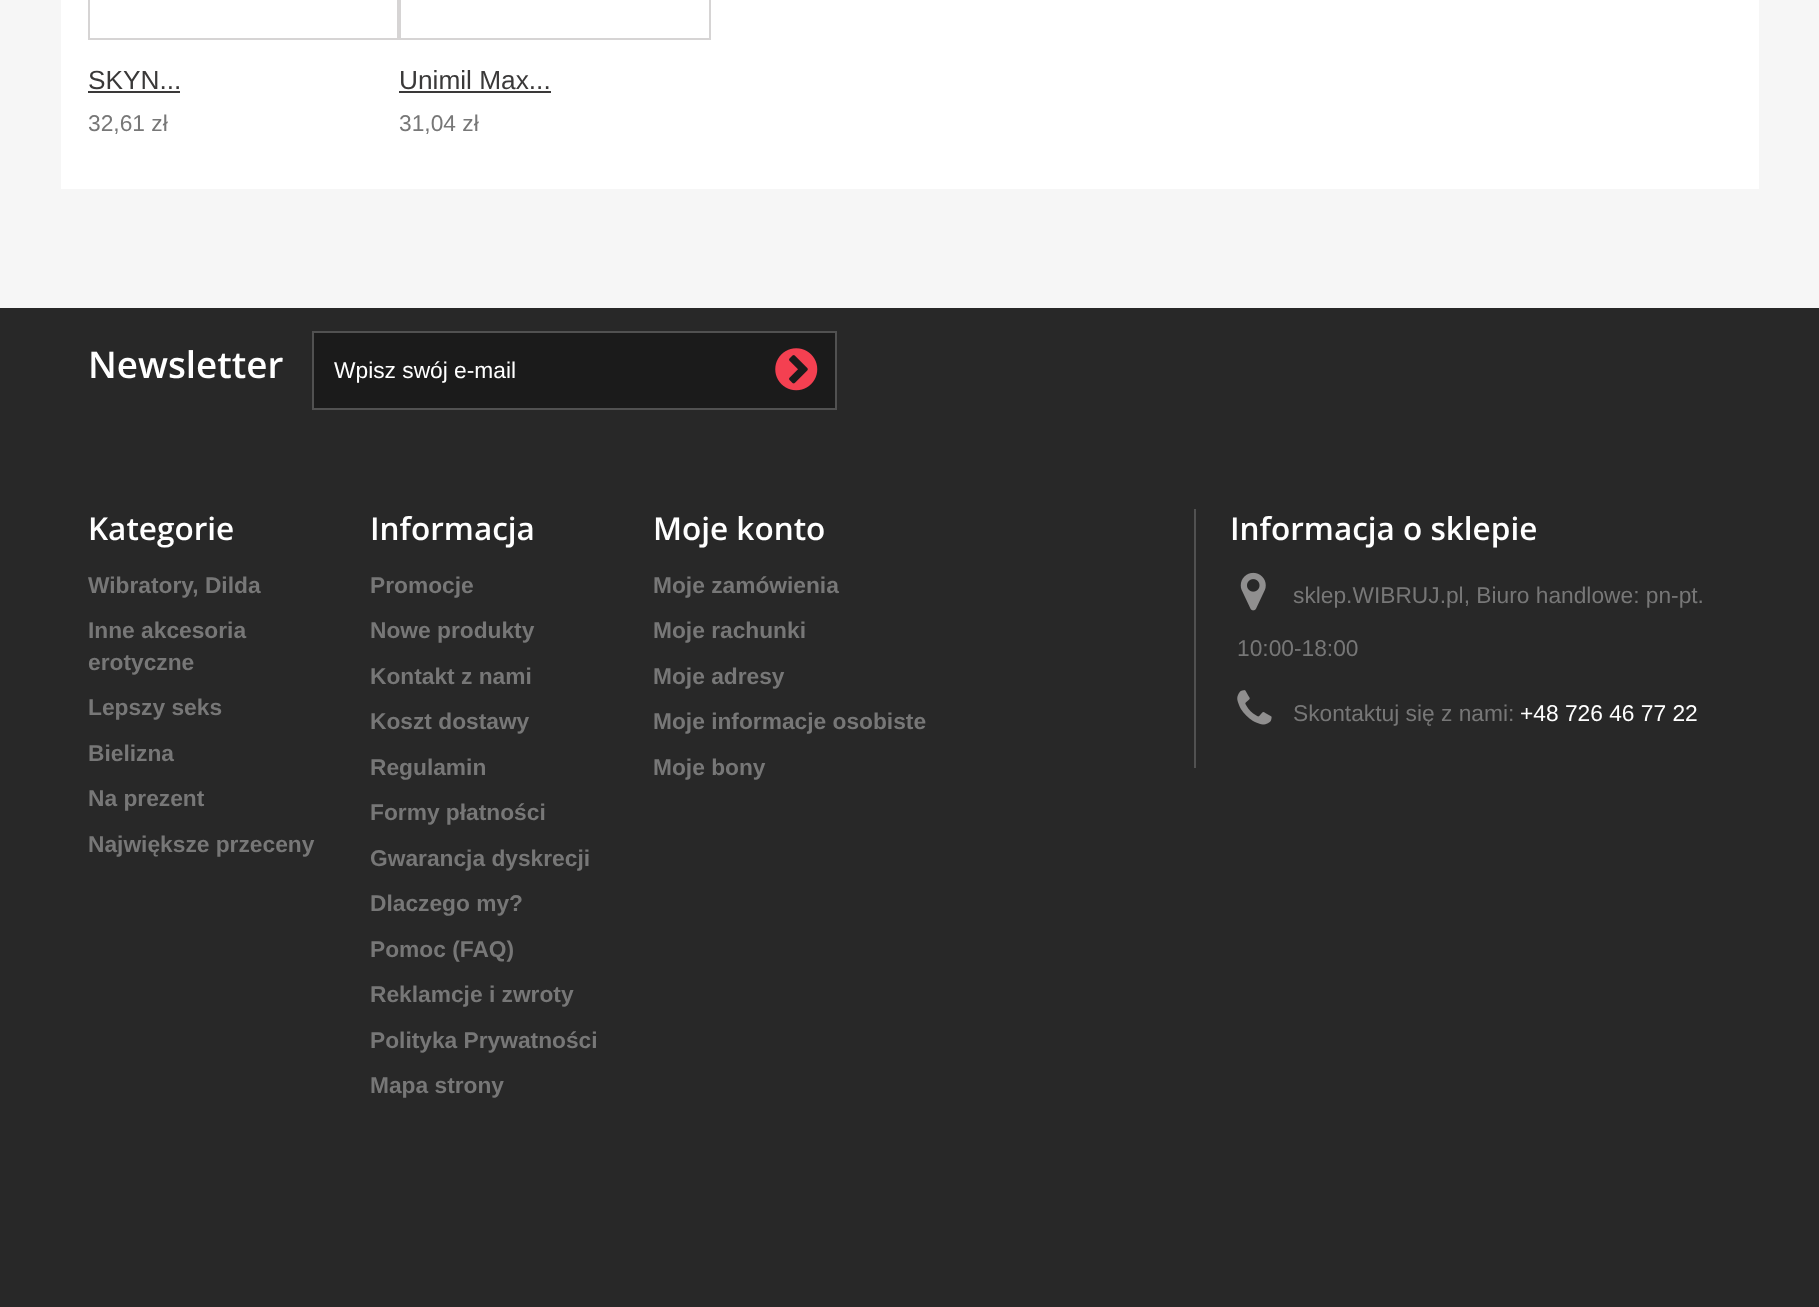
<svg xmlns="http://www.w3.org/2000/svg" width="1819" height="1307">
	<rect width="100%" height="100%" fill="#282828" />
	<rect x="0" y="0" width="1819" height="308" fill="#F6F6F6" />
	<rect x="61" y="0" width="1698" height="189" fill="#FFFFFF" />
	<rect x="89" y="-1" width="309" height="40" fill="none" stroke="#D6D4D4" stroke-width="2" />
	<text x="88" y="89" font-family="Liberation Sans" font-size="26.25" fill="#3A3939">SKYN...</text>
	<rect x="88" y="91" width="92" height="2" fill="#3A3939" />
	<text x="88" y="131" font-family="Liberation Sans" font-size="22.75" fill="#777777">32,61 zł</text>
	<rect x="400" y="-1" width="310" height="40" fill="none" stroke="#D6D4D4" stroke-width="2" />
	<text x="399" y="89" font-family="Liberation Sans" font-size="26.25" fill="#3A3939">Unimil Max...</text>
	<rect x="399" y="91" width="152" height="2" fill="#3A3939" />
	<text x="399" y="131" font-family="Liberation Sans" font-size="22.75" fill="#777777">31,04 zł</text>
	<text x="88" y="378" font-family="Open Sans" font-size="36.75" font-weight="600" fill="#FFFFFF">Newsletter</text>
	<rect x="313" y="332" width="523" height="77" fill="#1B1B1B" stroke="#515151" stroke-width="2" />
	<text x="334" y="378" font-family="Liberation Sans" font-size="22.75" fill="#FFFFFF">Wpisz swój e-mail</text>
	<image x="775" y="348" width="43" height="43" href="assets/img1.png" />
	<text x="88" y="540" font-family="Open Sans" font-size="31.5" font-weight="600" fill="#FFFFFF">Kategorie</text>
	<g font-family="Liberation Sans" font-size="22.75" font-weight="700" fill="#777777">
		<text x="88" y="593">Wibratory, Dilda</text>
		<text x="88" y="638">Inne akcesoria</text>
		<text x="88" y="670">erotyczne</text>
		<text x="88" y="715">Lepszy seks</text>
		<text x="88" y="761">Bielizna</text>
		<text x="88" y="806">Na prezent</text>
		<text x="88" y="852">Największe przeceny</text>
	</g>
	<text x="370" y="540" font-family="Open Sans" font-size="31.5" font-weight="600" fill="#FFFFFF">Informacja</text>
	<g font-family="Liberation Sans" font-size="22.75" font-weight="700" fill="#777777">
		<text x="370" y="593">Promocje</text>
		<text x="370" y="638">Nowe produkty</text>
		<text x="370" y="684">Kontakt z nami</text>
		<text x="370" y="729">Koszt dostawy</text>
		<text x="370" y="775">Regulamin</text>
		<text x="370" y="820">Formy płatności</text>
		<text x="370" y="866">Gwarancja dyskrecji</text>
		<text x="370" y="911">Dlaczego my?</text>
		<text x="370" y="957">Pomoc (FAQ)</text>
		<text x="370" y="1002">Reklamcje i zwroty</text>
		<text x="370" y="1048">Polityka Prywatności</text>
		<text x="370" y="1093">Mapa strony</text>
	</g>
	<text x="653" y="540" font-family="Open Sans" font-size="31.5" font-weight="600" fill="#FFFFFF">Moje konto</text>
	<g font-family="Liberation Sans" font-size="22.75" font-weight="700" fill="#777777">
		<text x="653" y="593">Moje zamówienia</text>
		<text x="653" y="638">Moje rachunki</text>
		<text x="653" y="684">Moje adresy</text>
		<text x="653" y="729">Moje informacje osobiste</text>
		<text x="653" y="775">Moje bony</text>
	</g>
	<rect x="1194" y="509" width="2" height="259" fill="#515151" />
	<text x="1230" y="540" font-family="Open Sans" font-size="31.5" font-weight="600" fill="#FFFFFF">Informacja o sklepie</text>
	<image x="1240" y="572" width="26" height="39" href="assets/img2.png" />
	<g font-family="Liberation Sans" font-size="22.75" fill="#777777">
		<text x="1293" y="603">sklep.WIBRUJ.pl, Biuro handlowe: pn-pt.</text>
		<text x="1237" y="656">10:00-18:00</text>
	</g>
	<image x="1237" y="690" width="35" height="35" href="assets/img3.png" />
	<text x="1293" y="721" font-family="Liberation Sans" font-size="22.75" fill="#777777">Skontaktuj się z nami:</text>
	<text x="1520" y="721" font-family="Liberation Sans" font-size="22.75" fill="#FFFFFF">+48 726 46 77 22</text>
</svg>
